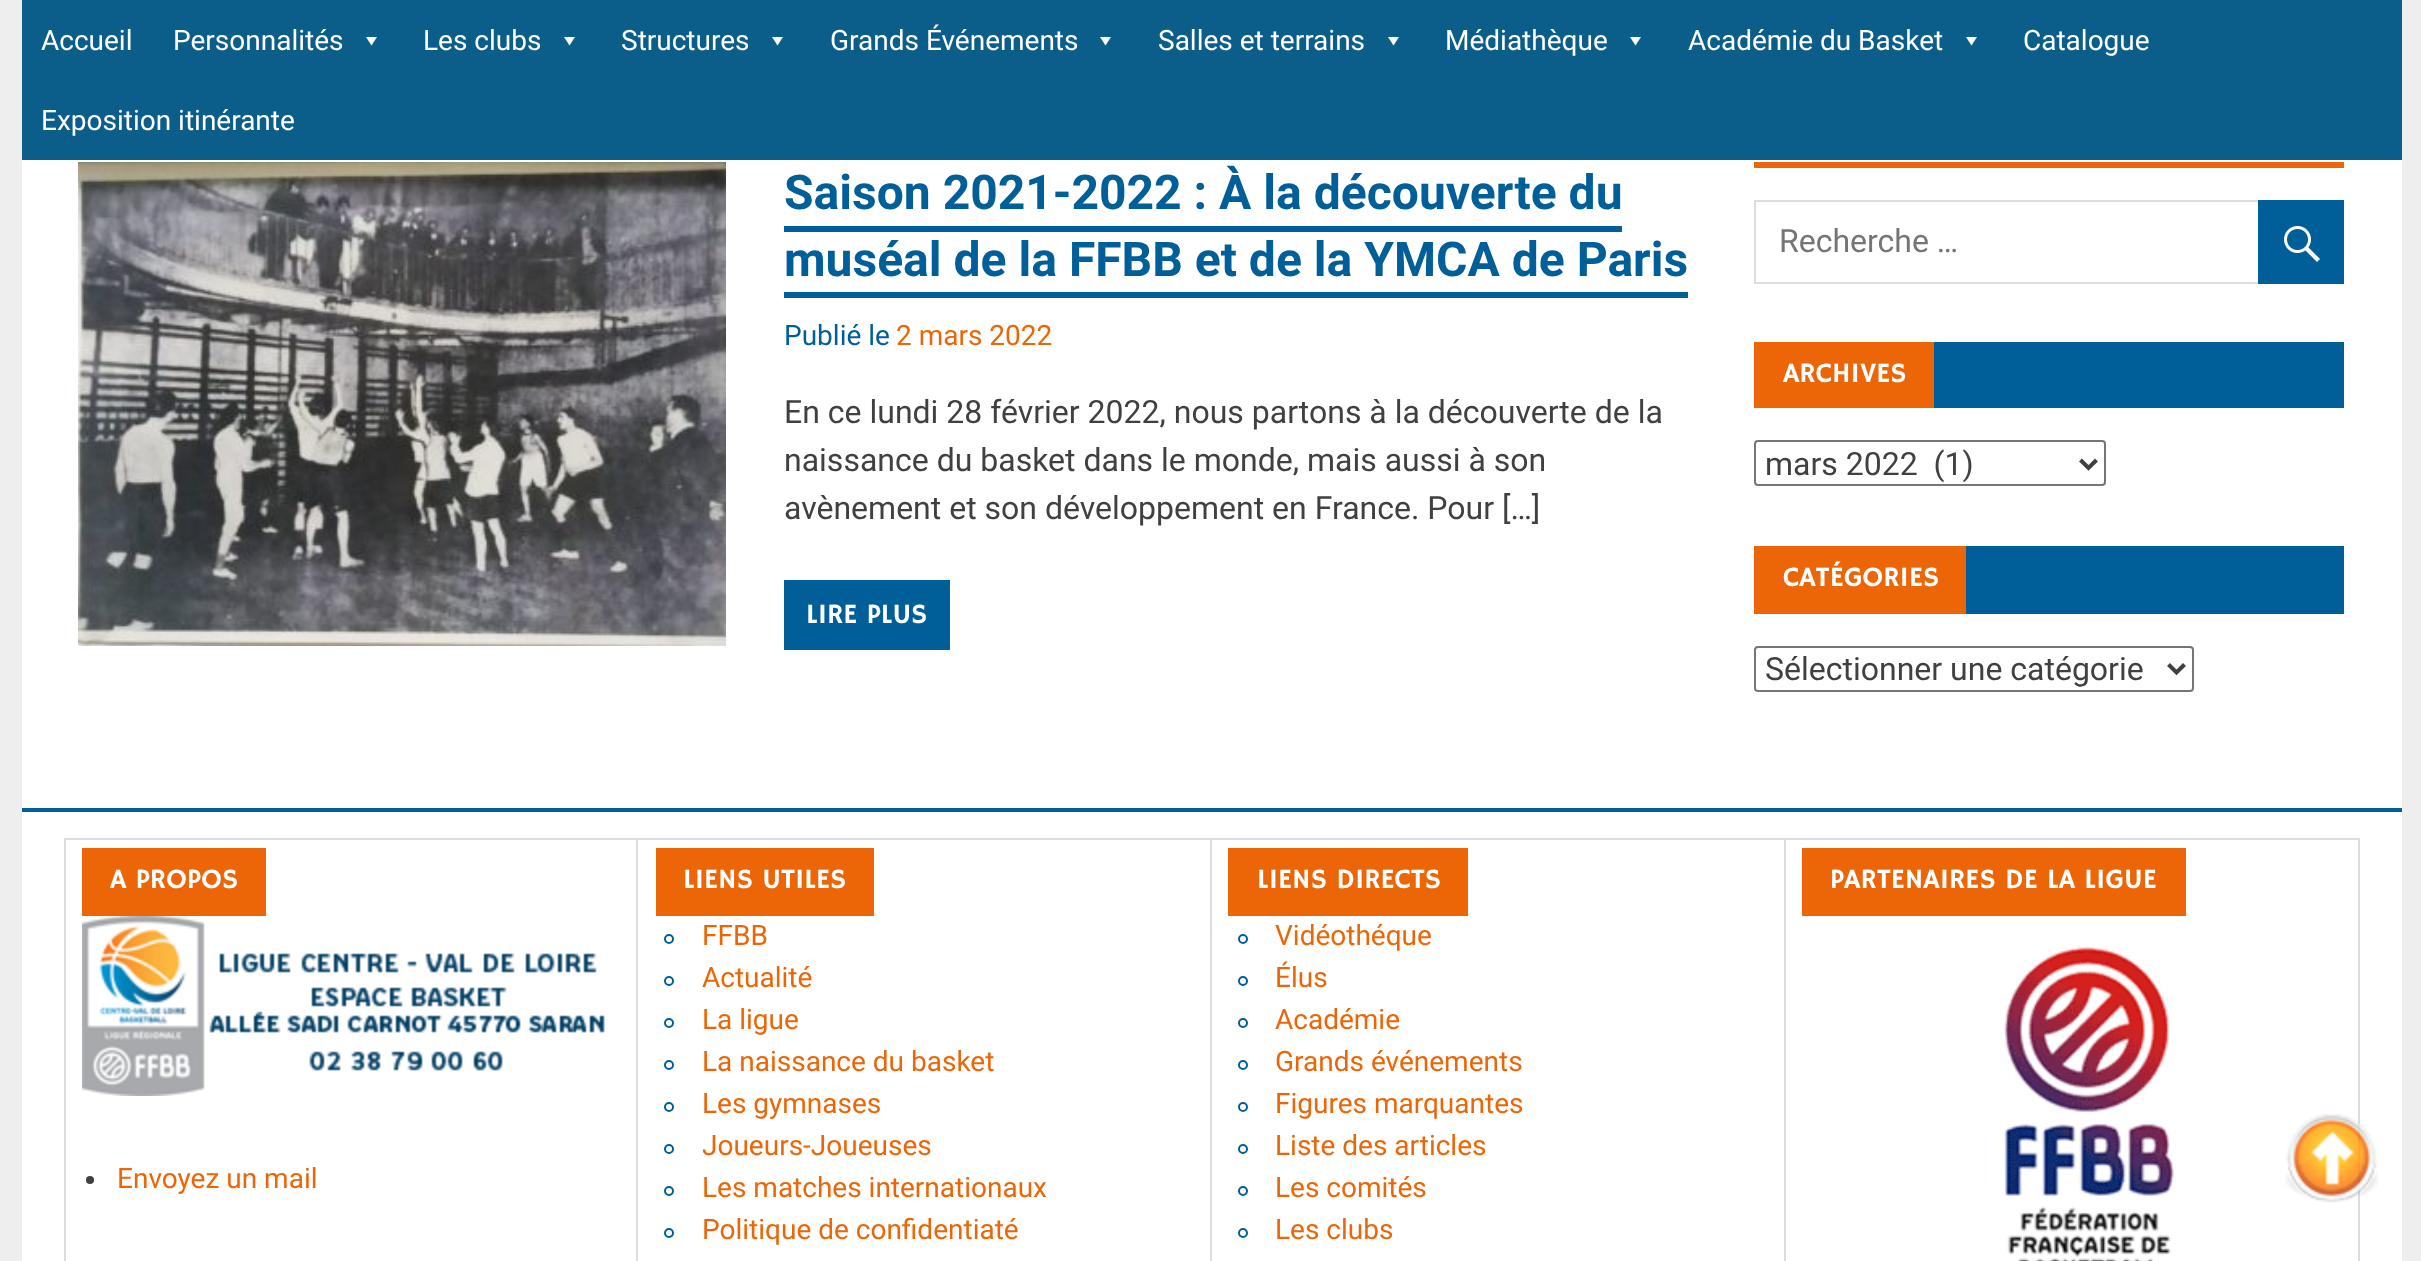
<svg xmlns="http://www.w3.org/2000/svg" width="2421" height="1261">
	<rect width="100%" height="100%" fill="#EEEEEE" />
	<rect x="22" y="160" width="2380" height="1101" fill="#FFFFFF" />
	<rect x="22" y="0" width="2380" height="160" fill="#0B5E8A" />
	<g font-family="Roboto" font-size="28" fill="#FFFFFF">
		<text x="41" y="50">Accueil</text>
		<text x="173" y="50">Personnalités</text>
	</g>
	<path d="M377 37L371.5 45.5L366 37Z" fill="#FFFFFF" />
	<text x="423" y="50" font-family="Roboto" font-size="28" fill="#FFFFFF">Les clubs</text>
	<path d="M575 37L569.5 45.5L564 37Z" fill="#FFFFFF" />
	<text x="621" y="50" font-family="Roboto" font-size="28" fill="#FFFFFF">Structures</text>
	<path d="M783 37L777.5 45.5L772 37Z" fill="#FFFFFF" />
	<text x="830" y="50" font-family="Roboto" font-size="28" fill="#FFFFFF">Grands Événements</text>
	<path d="M1111 37L1105.5 45.5L1100 37Z" fill="#FFFFFF" />
	<text x="1158" y="50" font-family="Roboto" font-size="28" fill="#FFFFFF">Salles et terrains</text>
	<path d="M1399 37L1393.5 45.5L1388 37Z" fill="#FFFFFF" />
	<text x="1445" y="50" font-family="Roboto" font-size="28" fill="#FFFFFF">Médiathèque</text>
	<path d="M1641 37L1635.5 45.5L1630 37Z" fill="#FFFFFF" />
	<text x="1688" y="50" font-family="Roboto" font-size="28" fill="#FFFFFF">Académie du Basket</text>
	<path d="M1977 37L1971.5 45.5L1966 37Z" fill="#FFFFFF" />
	<g font-family="Roboto" font-size="28" fill="#FFFFFF">
		<text x="2023" y="50">Catalogue</text>
		<text x="41" y="130">Exposition itinérante</text>
	</g>
	<image x="78" y="162" width="648" height="484" href="assets/img1.png" />
	<g font-family="Roboto" font-size="48" font-weight="700" fill="#005F99">
		<text x="784" y="209">Saison 2021-2022 : À la découverte du</text>
		<text x="784" y="276">muséal de la FFBB et de la YMCA de Paris</text>
	</g>
	<rect x="784" y="226" width="838" height="6" fill="#005F99" />
	<rect x="784" y="292" width="904" height="6" fill="#005F99" />
	<text x="784" y="345" font-family="Roboto" font-size="28" fill="#005F99">Publié le</text>
	<text x="896" y="345" font-family="Roboto" font-size="28" fill="#EC6607">2 mars 2022</text>
	<g font-family="Roboto" font-size="32" fill="#404040">
		<text x="784" y="423">En ce lundi 28 février 2022, nous partons à la découverte de la</text>
		<text x="784" y="471">naissance du basket dans le monde, mais aussi à son</text>
		<text x="784" y="519">avènement et son développement en France. Pour […]</text>
	</g>
	<rect x="784" y="580" width="166" height="70" fill="#005F99" />
	<text x="806" y="623" font-family="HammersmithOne" font-size="28" fill="#FFFFFF">LIRE PLUS</text>
	<rect x="1754" y="162" width="590" height="6" fill="#EC6607" />
	<rect x="1755" y="201" width="588" height="82" fill="none" stroke="#DDDDDD" stroke-width="2" />
	<text x="1779" y="252" font-family="Roboto" font-size="32" fill="#757575">Recherche …</text>
	<rect x="2258" y="200" width="86" height="84" fill="#005F99" />
	<image x="2284" y="226" width="36" height="36" href="assets/img2.png" />
	<rect x="1934" y="342" width="410" height="66" fill="#005F99" />
	<rect x="1754" y="342" width="180" height="66" fill="#EC6607" />
	<text x="1783" y="382" font-family="HammersmithOne" font-size="28" fill="#FFFFFF">ARCHIVES</text>
	<rect x="1755" y="441" width="350" height="44" rx="3" fill="none" stroke="#767676" stroke-width="2" />
	<path d="M2080.5 460L2088.5 468L2096.5 460" fill="none" stroke="#404040" stroke-width="4" />
	<text x="1765" y="475" font-family="Roboto" font-size="32" fill="#404040" xml:space="preserve">mars 2022  (1)</text>
	<rect x="1966" y="546" width="378" height="68" fill="#005F99" />
	<rect x="1754" y="546" width="212" height="68" fill="#EC6607" />
	<text x="1783" y="586" font-family="HammersmithOne" font-size="28" fill="#FFFFFF">CATÉGORIES</text>
	<rect x="1755" y="647" width="438" height="44" rx="3" fill="none" stroke="#767676" stroke-width="2" />
	<path d="M2168.5 664.5L2176.5 672.5L2184.5 664.5" fill="none" stroke="#404040" stroke-width="4" />
	<text x="1765" y="680" font-family="Roboto" font-size="32" fill="#404040">Sélectionner une catégorie</text>
	<rect x="22" y="808" width="2380" height="4" fill="#005F99" />
	<rect x="1784" y="838" width="576" height="2" fill="#DDDDDD" />
	<rect x="1784" y="838" width="2" height="423" fill="#DDDDDD" />
	<rect x="1210" y="838" width="576" height="2" fill="#DDDDDD" />
	<rect x="1210" y="838" width="2" height="423" fill="#DDDDDD" />
	<rect x="636" y="838" width="576" height="2" fill="#DDDDDD" />
	<rect x="636" y="838" width="2" height="423" fill="#DDDDDD" />
	<rect x="64" y="838" width="574" height="2" fill="#DDDDDD" />
	<rect x="64" y="838" width="2" height="423" fill="#DDDDDD" />
	<rect x="82" y="848" width="184" height="68" fill="#EC6607" />
	<text x="110" y="888" font-family="HammersmithOne" font-size="28" fill="#FFFFFF">A PROPOS</text>
	<image x="82" y="916" width="523" height="180" href="assets/img3.png" />
	<circle cx="90" cy="1180" r="4" fill="#404040" />
	<text x="117" y="1188" font-family="Roboto" font-size="28" fill="#EC6607">Envoyez un mail</text>
	<rect x="656" y="848" width="218" height="68" fill="#EC6607" />
	<text x="683" y="888" font-family="HammersmithOne" font-size="28" fill="#FFFFFF">LIENS UTILES</text>
	<circle cx="669" cy="939" r="4" fill="none" stroke="#005F99" stroke-width="2" />
	<text x="702" y="945" font-family="Roboto" font-size="28" fill="#EC6607">FFBB</text>
	<circle cx="669" cy="981" r="4" fill="none" stroke="#005F99" stroke-width="2" />
	<text x="702" y="987" font-family="Roboto" font-size="28" fill="#EC6607">Actualité</text>
	<circle cx="669" cy="1023" r="4" fill="none" stroke="#005F99" stroke-width="2" />
	<text x="702" y="1029" font-family="Roboto" font-size="28" fill="#EC6607">La ligue</text>
	<circle cx="669" cy="1065" r="4" fill="none" stroke="#005F99" stroke-width="2" />
	<text x="702" y="1071" font-family="Roboto" font-size="28" fill="#EC6607">La naissance du basket</text>
	<circle cx="669" cy="1107" r="4" fill="none" stroke="#005F99" stroke-width="2" />
	<text x="702" y="1113" font-family="Roboto" font-size="28" fill="#EC6607">Les gymnases</text>
	<circle cx="669" cy="1149" r="4" fill="none" stroke="#005F99" stroke-width="2" />
	<text x="702" y="1155" font-family="Roboto" font-size="28" fill="#EC6607">Joueurs-Joueuses</text>
	<circle cx="669" cy="1191" r="4" fill="none" stroke="#005F99" stroke-width="2" />
	<text x="702" y="1197" font-family="Roboto" font-size="28" fill="#EC6607">Les matches internationaux</text>
	<circle cx="669" cy="1233" r="4" fill="none" stroke="#005F99" stroke-width="2" />
	<text x="702" y="1239" font-family="Roboto" font-size="28" fill="#EC6607">Politique de confidentiaté</text>
	<rect x="1228" y="848" width="240" height="68" fill="#EC6607" />
	<text x="1257" y="888" font-family="HammersmithOne" font-size="28" fill="#FFFFFF">LIENS DIRECTS</text>
	<circle cx="1243" cy="939" r="4" fill="none" stroke="#005F99" stroke-width="2" />
	<text x="1275" y="945" font-family="Roboto" font-size="28" fill="#EC6607">Vidéothéque</text>
	<circle cx="1243" cy="981" r="4" fill="none" stroke="#005F99" stroke-width="2" />
	<text x="1275" y="987" font-family="Roboto" font-size="28" fill="#EC6607">Élus</text>
	<circle cx="1243" cy="1023" r="4" fill="none" stroke="#005F99" stroke-width="2" />
	<text x="1275" y="1029" font-family="Roboto" font-size="28" fill="#EC6607">Académie</text>
	<circle cx="1243" cy="1065" r="4" fill="none" stroke="#005F99" stroke-width="2" />
	<text x="1275" y="1071" font-family="Roboto" font-size="28" fill="#EC6607">Grands événements</text>
	<circle cx="1243" cy="1107" r="4" fill="none" stroke="#005F99" stroke-width="2" />
	<text x="1275" y="1113" font-family="Roboto" font-size="28" fill="#EC6607">Figures marquantes</text>
	<circle cx="1243" cy="1149" r="4" fill="none" stroke="#005F99" stroke-width="2" />
	<text x="1275" y="1155" font-family="Roboto" font-size="28" fill="#EC6607">Liste des articles</text>
	<circle cx="1243" cy="1191" r="4" fill="none" stroke="#005F99" stroke-width="2" />
	<text x="1275" y="1197" font-family="Roboto" font-size="28" fill="#EC6607">Les comités</text>
	<circle cx="1243" cy="1233" r="4" fill="none" stroke="#005F99" stroke-width="2" />
	<text x="1275" y="1239" font-family="Roboto" font-size="28" fill="#EC6607">Les clubs</text>
	<rect x="2358" y="838" width="2" height="423" fill="#DDDDDD" />
	<rect x="1802" y="848" width="384" height="68" fill="#EC6607" />
	<text x="1830" y="888" font-family="HammersmithOne" font-size="28" fill="#FFFFFF">PARTENAIRES DE LA LIGUE</text>
	<image x="1998" y="940" width="177" height="321" href="assets/img4.png" />
	<image x="2285" y="1113" width="93" height="90" href="assets/img5.png" />
</svg>
